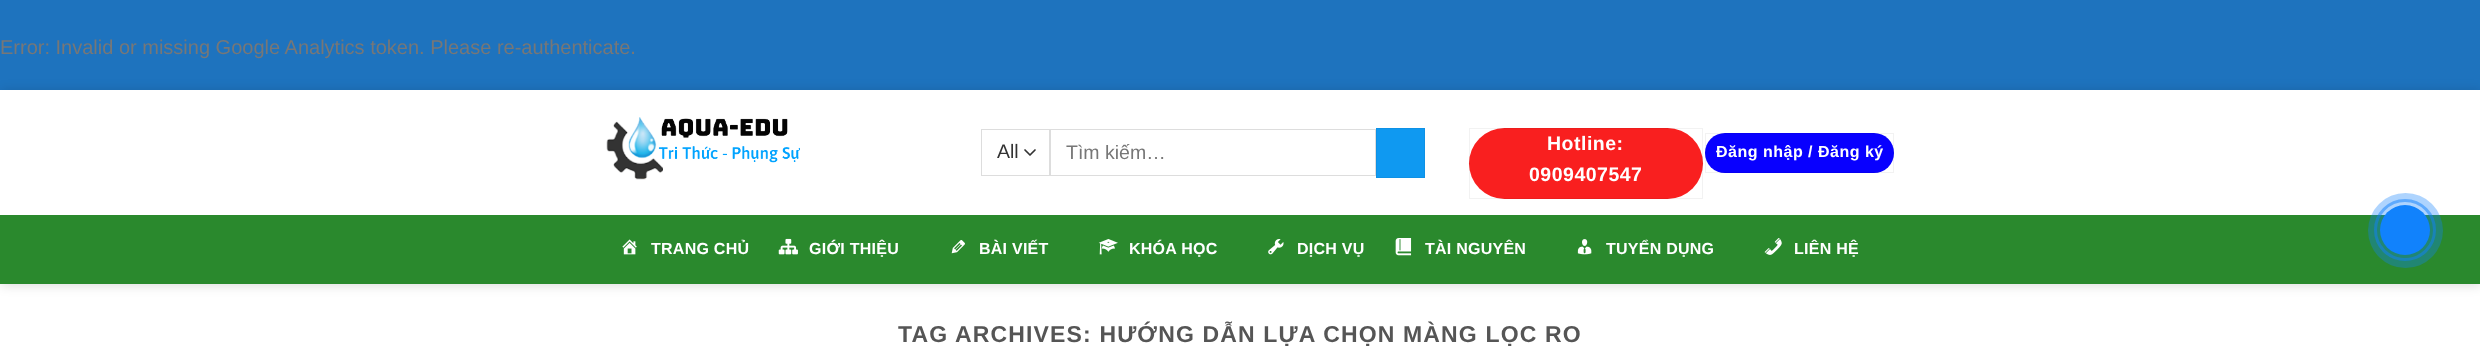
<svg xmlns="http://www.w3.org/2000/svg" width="2480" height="354">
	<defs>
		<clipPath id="clip1"><path d="M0 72H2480V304H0ZM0 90H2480V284H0Z" clip-rule="evenodd" /></clipPath>
	</defs>
	<rect width="100%" height="100%" fill="#1E73BE" />
	<text x="0" y="54" font-family="Liberation Sans" font-size="20" fill="#777777">Error: Invalid or missing Google Analytics token. Please re-authenticate.</text>
	<rect x="0" y="90" width="2480" height="264" fill="#FFFFFF" />
	<g clip-path="url(#clip1)">
		<rect x="1" y="91" width="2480" height="194" fill="#000000" fill-opacity="0.15" filter="blur(6px)" />
	</g>
	<image x="606" y="117" width="194" height="63" href="assets/img1.png" />
	<path d="M1025 150L1030 155L1035 150" fill="none" stroke="#333333" stroke-width="1.7" stroke-linecap="round" stroke-linejoin="round" />
	<rect x="981.5" y="129.5" width="68" height="46" fill="none" stroke="#DDDDDD" />
	<text x="997" y="158" font-family="Liberation Sans" font-size="19.5" fill="#333333">All</text>
	<rect x="1050.5" y="129.5" width="325" height="46" fill="none" stroke="#DDDDDD" />
	<text x="1066" y="159" font-family="Liberation Sans" font-size="19.5" fill="#777777">Tìm kiếm…</text>
	<rect x="1376.5" y="128.5" width="48" height="49" fill="#0F99F1" stroke="#0E91E5" />
	<rect x="1469" y="128" width="234" height="71" rx="35.5" fill="#F91F1F" />
	<rect x="1469.5" y="128.5" width="233" height="70" fill="none" stroke="#000000" stroke-opacity="0.05" />
	<g font-family="Liberation Sans" font-size="19.5" font-weight="700" letter-spacing="0.5" fill="#FFFFFF">
		<text x="1547" y="150">Hotline:</text>
		<text x="1529" y="181">0909407547</text>
	</g>
	<rect x="1705" y="133" width="189" height="40" rx="20" fill="#0800FF" />
	<rect x="1705.5" y="133.5" width="188" height="39" fill="none" stroke="#000000" stroke-opacity="0.05" />
	<text x="1716" y="157" font-family="Liberation Sans" font-size="16" font-weight="700" letter-spacing="0.5" fill="#FFFFFF">Đăng nhập / Đăng ký</text>
	<rect x="0" y="215" width="2480" height="69" fill="#2A892D" />
	<image x="622" y="239" width="15" height="16" href="assets/img2.png" />
	<text x="651" y="254" font-family="Liberation Sans" font-size="16" font-weight="700" letter-spacing="0.25" fill="#FFFFFF">TRANG CHỦ</text>
	<image x="778" y="238" width="20" height="17" href="assets/img3.png" />
	<text x="809" y="254" font-family="Liberation Sans" font-size="16" font-weight="700" letter-spacing="0.25" fill="#FFFFFF">GIỚI THIỆU</text>
	<image x="951" y="240" width="14" height="14" href="assets/img4.png" />
	<text x="979" y="254" font-family="Liberation Sans" font-size="16" font-weight="700" letter-spacing="0.25" fill="#FFFFFF">BÀI VIẾT</text>
	<image x="1098" y="239" width="20" height="16" href="assets/img5.png" />
	<text x="1129" y="254" font-family="Liberation Sans" font-size="16" font-weight="700" letter-spacing="0.25" fill="#FFFFFF">KHÓA HỌC</text>
	<image x="1268" y="239" width="16" height="16" href="assets/img6.png" />
	<text x="1297" y="254" font-family="Liberation Sans" font-size="16" font-weight="700" letter-spacing="0.25" fill="#FFFFFF">DỊCH VỤ</text>
	<image x="1395" y="238" width="17" height="18" href="assets/img7.png" />
	<text x="1425" y="254" font-family="Liberation Sans" font-size="16" font-weight="700" letter-spacing="0.25" fill="#FFFFFF">TÀI NGUYÊN</text>
	<image x="1577" y="239" width="15" height="16" href="assets/img8.png" />
	<text x="1606" y="254" font-family="Liberation Sans" font-size="16" font-weight="700" letter-spacing="0.25" fill="#FFFFFF">TUYỂN DỤNG</text>
	<image x="1764" y="238" width="18" height="17" href="assets/img9.png" />
	<text x="1794" y="254" font-family="Liberation Sans" font-size="16" font-weight="700" letter-spacing="0.25" fill="#FFFFFF">LIÊN HỆ</text>
	<text x="898" y="342" font-family="Liberation Sans" font-size="23" font-weight="700" letter-spacing="1.15" fill="#555555">TAG ARCHIVES: HƯỚNG DẪN LỰA CHỌN MÀNG LỌC RO</text>
	<circle cx="2405" cy="230" r="29.5" fill="none" stroke="#1182FC" stroke-opacity="0.5" stroke-width="3" />
	<circle cx="2405.5" cy="230.5" r="37.5" fill="#1182FC" fill-opacity="0.34" />
	<circle cx="2405" cy="230" r="25" fill="#1182FC" />
</svg>
